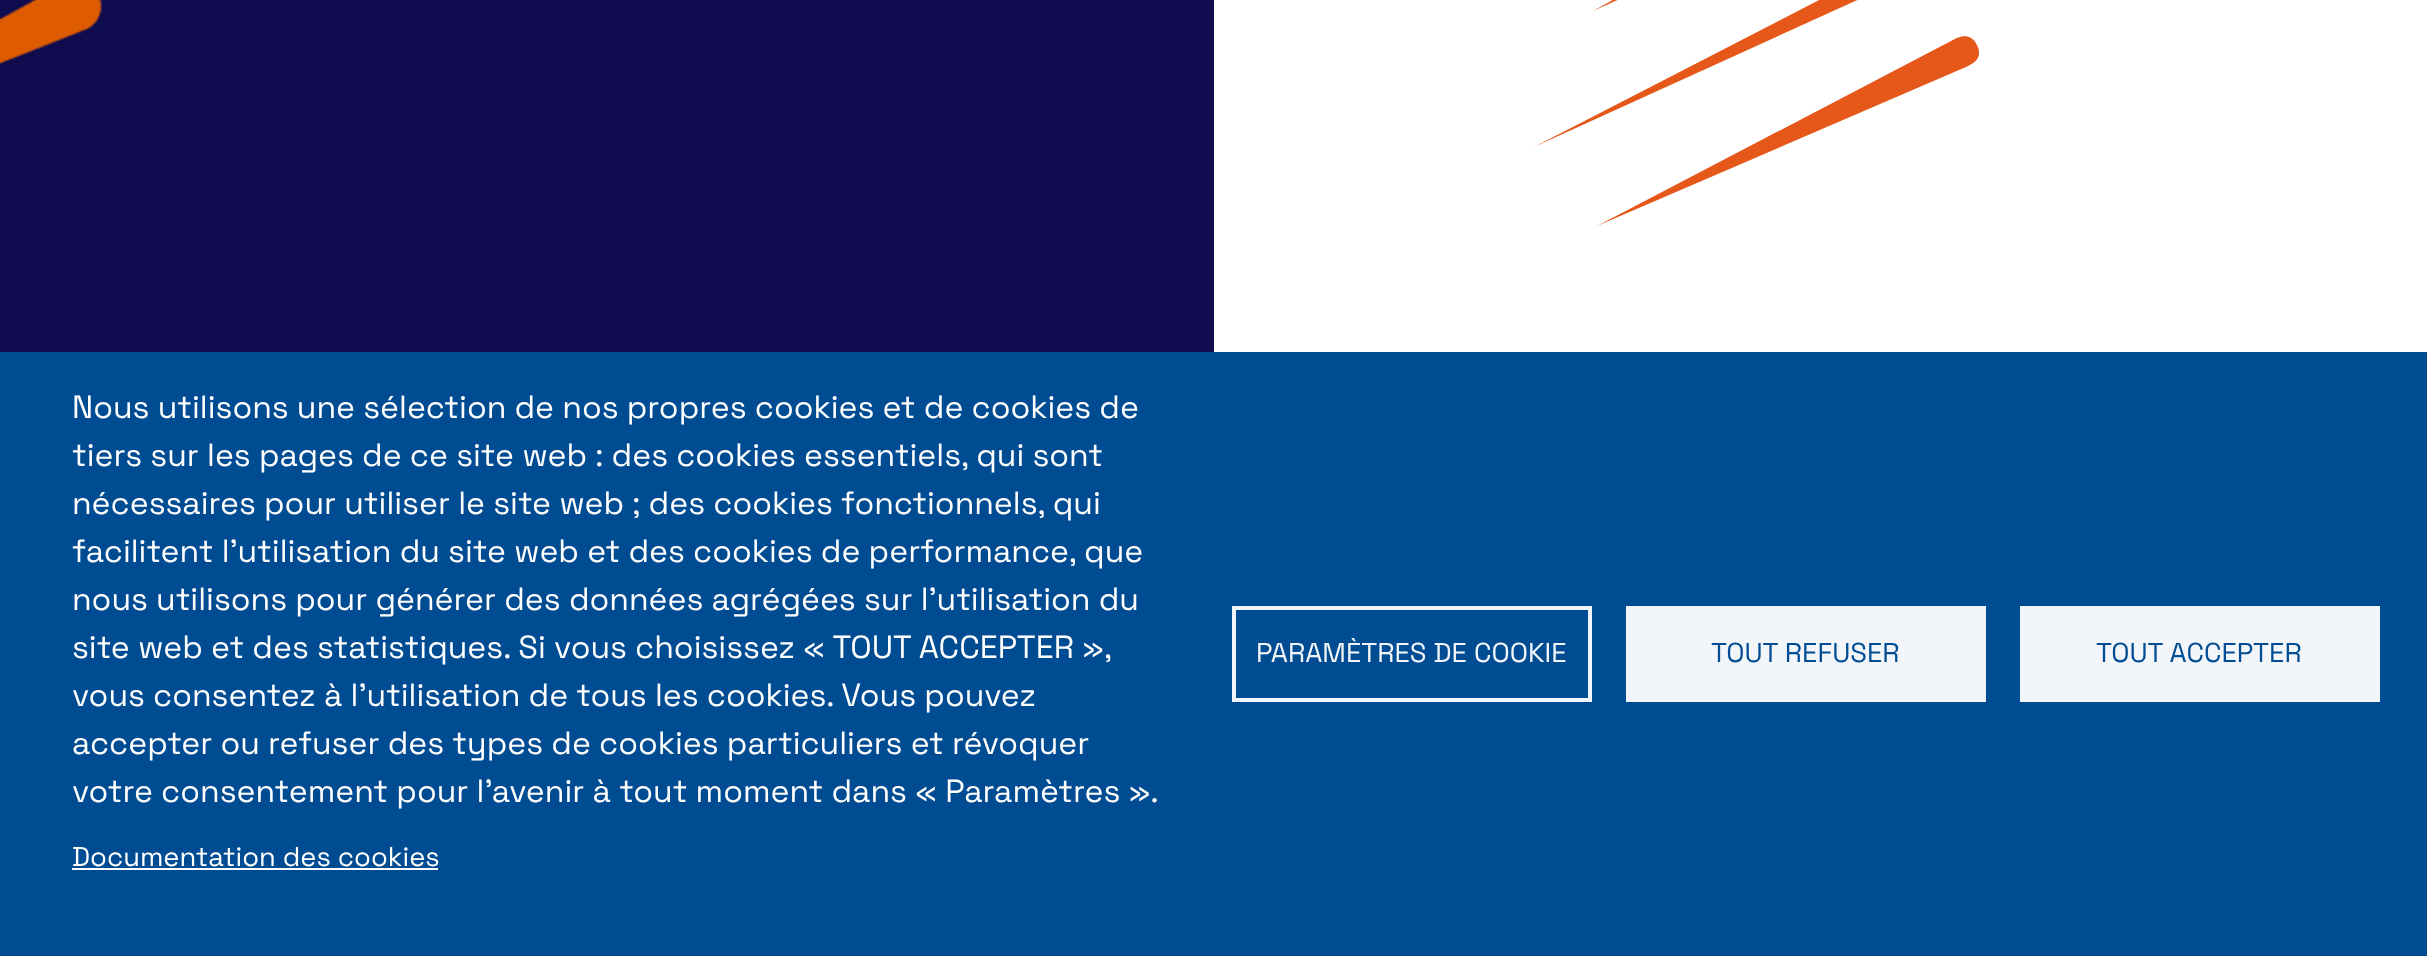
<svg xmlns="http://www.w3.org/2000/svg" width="2427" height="956">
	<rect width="100%" height="100%" fill="#FFFFFF" />
	<image x="0" y="0" width="1214" height="352" href="assets/img1.png" />
	<path d="M1899-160L1593 11L1914-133C1923-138 1931-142 1925-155C1919-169 1906-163 1900-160Z" fill="#E6581A" />
	<path d="M1951 41L1597 226L1966 67C1975 63 1983 58 1977 45C1970 31 1958 37 1951 41Z" fill="#E6581A" />
	<path d="M2081-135L1534 147L2095-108C2104-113 2112-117 2106-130C2100-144 2087-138 2081-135Z" fill="#E6581A" />
	<rect x="0" y="352" width="2427" height="604" fill="#004C93" />
	<g font-family="Space Grotesk" font-size="32" fill="#FFFFFF">
		<text x="72" y="418">Nous utilisons une sélection de nos propres cookies et de cookies de</text>
		<text x="72" y="466">tiers sur les pages de ce site web : des cookies essentiels, qui sont</text>
		<text x="72" y="514">nécessaires pour utiliser le site web ; des cookies fonctionnels, qui</text>
		<text x="72" y="562">facilitent l'utilisation du site web et des cookies de performance, que</text>
		<text x="72" y="610">nous utilisons pour générer des données agrégées sur l'utilisation du</text>
		<text x="72" y="658">site web et des statistiques. Si vous choisissez « TOUT ACCEPTER »,</text>
		<text x="72" y="706">vous consentez à l'utilisation de tous les cookies. Vous pouvez</text>
		<text x="72" y="754">accepter ou refuser des types de cookies particuliers et révoquer</text>
		<text x="72" y="802">votre consentement pour l'avenir à tout moment dans « Paramètres ».</text>
	</g>
	<text x="72" y="866" font-family="Space Grotesk" font-size="27.25" fill="#FFFFFF">Documentation des cookies</text>
	<rect x="72" y="868" width="366" height="2" fill="#FFFFFF" />
	<rect x="1234" y="608" width="356" height="92" fill="none" stroke="#F2F6FA" stroke-width="4" />
	<text x="1256" y="662" font-family="Space Grotesk" font-size="27.25" fill="#F2F6FA">PARAMÈTRES DE COOKIE</text>
	<rect x="1626" y="606" width="360" height="96" fill="#F2F6FA" />
	<text x="1711" y="662" font-family="Space Grotesk" font-size="27.25" fill="#004C93">TOUT REFUSER</text>
	<rect x="2020" y="606" width="360" height="96" fill="#F2F6FA" />
	<text x="2096" y="662" font-family="Space Grotesk" font-size="27.25" fill="#004C93">TOUT ACCEPTER</text>
</svg>
